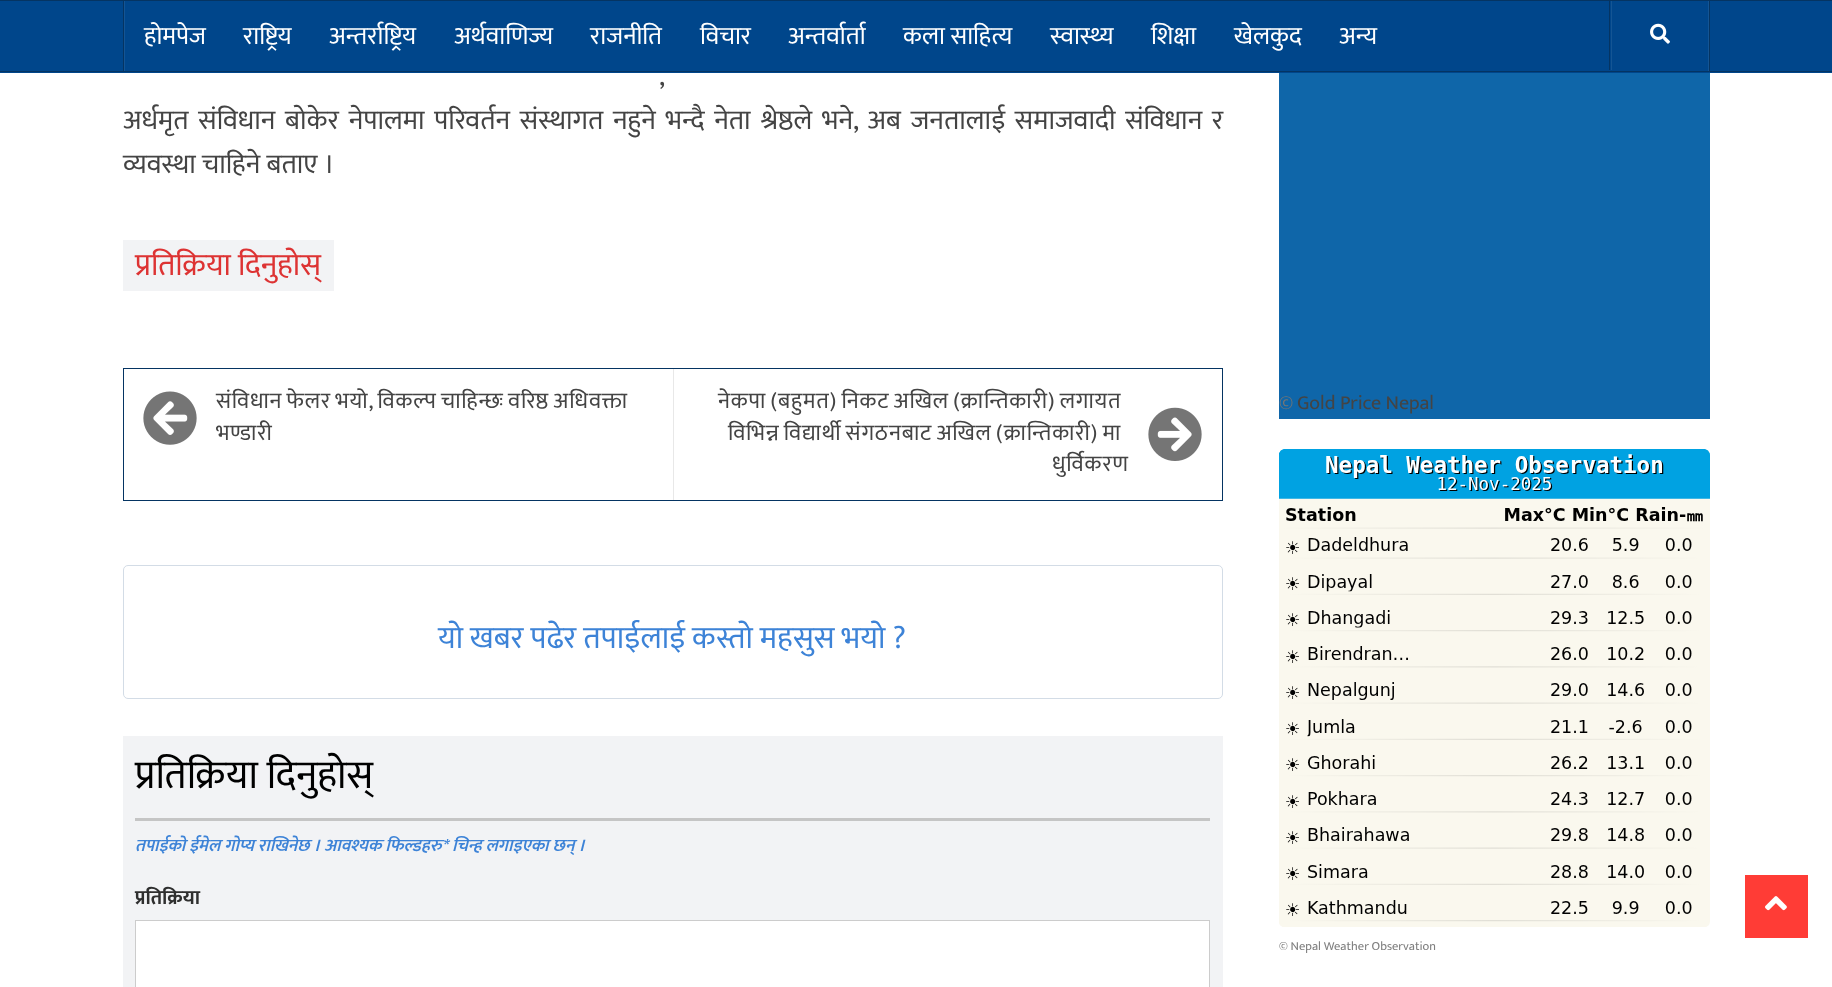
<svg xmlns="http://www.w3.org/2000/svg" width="1832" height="987">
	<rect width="100%" height="100%" fill="#FFFFFF" />
	<rect x="0" y="1" width="1832" height="72" fill="#00468B" />
	<rect x="0" y="0" width="1832" height="1" fill="#053462" />
	<rect x="0" y="71" width="1832" height="1" fill="#053462" />
	<rect x="1709" y="1" width="1" height="70" fill="#053462" />
	<rect x="123" y="1" width="1" height="70" fill="#053462" />
	<rect x="1708" y="1" width="1" height="70" fill="#145594" />
	<rect x="124" y="1" width="1" height="70" fill="#145594" />
	<g font-family="Mukta" font-size="25" fill="#FFFFFF">
		<text x="144" y="44">होमपेज</text>
		<text x="243" y="44">राष्ट्रिय</text>
		<text x="329" y="44">अन्तर्राष्ट्रिय</text>
		<text x="454" y="44">अर्थवाणिज्य</text>
		<text x="590" y="44">राजनीति</text>
		<text x="700" y="44">विचार</text>
		<text x="788" y="44">अन्तर्वार्ता</text>
		<text x="903" y="44">कला साहित्य</text>
		<text x="1050" y="44">स्वास्थ्य</text>
		<text x="1151" y="44">शिक्षा</text>
		<text x="1234" y="44">खेलकुद</text>
		<text x="1339" y="44">अन्य</text>
	</g>
	<rect x="1609" y="1" width="1" height="69" fill="#053462" />
	<rect x="1611" y="1" width="1" height="69" fill="#145594" />
	<image x="1650" y="23" width="20" height="21" href="assets/img1.png" />
	<g font-family="Mukta" font-size="27.5" fill="#444444">
		<text x="659" y="85" word-spacing="2">,</text>
		<text x="123" y="129" word-spacing="3.6">अर्धमृत संविधान बोकेर नेपालमा परिवर्तन संस्थागत नहुने भन्दै नेता श्रेष्ठले भने, अब जनतालाई समाजवादी संविधान र</text>
		<text x="123" y="173">व्यवस्था चाहिने बताए ।</text>
	</g>
	<rect x="123" y="240" width="211" height="51" fill="#F2F3F5" />
	<text x="135" y="275" font-family="Mukta" font-size="31.25" fill="#DD3333">प्रतिक्रिया दिनुहोस्</text>
	<rect x="123.5" y="368.5" width="1099" height="132" fill="none" stroke="#053462" />
	<rect x="673" y="369" width="1" height="131" fill="#E8E8E8" />
	<image x="143" y="391" width="54" height="54" href="assets/img2.png" />
	<g font-family="Mukta" font-size="22.5" letter-spacing="0.8" fill="#444444">
		<text x="216" y="408" word-spacing="-1.5">संविधान फेलर भयो, विकल्प चाहिन्छः वरिष्ठ अधिवक्ता</text>
		<text x="216" y="440">भण्डारी</text>
		<text x="718" y="408" word-spacing="-1.5">नेकपा (बहुमत) निकट अखिल (क्रान्तिकारी) लगायत</text>
		<text x="728" y="440" word-spacing="-1.5">विभिन्न विद्यार्थी संगठनबाट अखिल (क्रान्तिकारी) मा</text>
		<text x="1052" y="471">धुर्विकरण</text>
	</g>
	<image x="1148" y="407" width="54" height="54" href="assets/img3.png" />
	<rect x="123.5" y="565.5" width="1099" height="133" rx="4.5" fill="none" stroke="#D3DCE6" />
	<text x="438" y="648" font-family="Mukta" font-size="31.25" fill="#3D83D7">यो खबर पढेर तपाईलाई कस्तो महसुस भयो ?</text>
	<rect x="123" y="736" width="1100" height="251" fill="#F2F3F5" />
	<rect x="135" y="818" width="1075" height="3" fill="#C5C5C5" />
	<text x="135" y="788" font-family="Mukta" font-size="40" fill="#000000">प्रतिक्रिया दिनुहोस्</text>
	<text x="135" y="851" font-family="Mukta" font-size="17.5" font-weight="600" font-style="italic" fill="#3D83D7">तपाईको ईमेल गोप्य राखिनेछ । आवश्यक फिल्डहरु* चिन्ह लगाइएका छन् ।</text>
	<text x="135" y="904" font-family="Mukta" font-size="20" font-weight="700" fill="#2F2F2F">प्रतिक्रिया</text>
	<rect x="135.5" y="920.5" width="1074" height="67" fill="#FFFFFF" stroke="#CCCCCC" />
	<rect x="1279" y="73" width="431" height="346" fill="#0F66A9" />
	<text x="1279" y="409" font-family="Mukta" font-size="20" fill="#757575">©</text>
	<text x="1297" y="409" font-family="Mukta" font-size="20" fill="#444444">Gold Price Nepal</text>
	<image x="1279" y="449" width="431" height="478" href="assets/img4.png" />
	<text x="1279" y="950" font-family="Mukta" font-size="12.5" fill="#808080">© Nepal Weather Observation</text>
	<rect x="1745" y="875" width="63" height="63" fill="#FF3C36" />
	<image x="1765" y="896" width="22" height="15" href="assets/img5.png" />
</svg>
